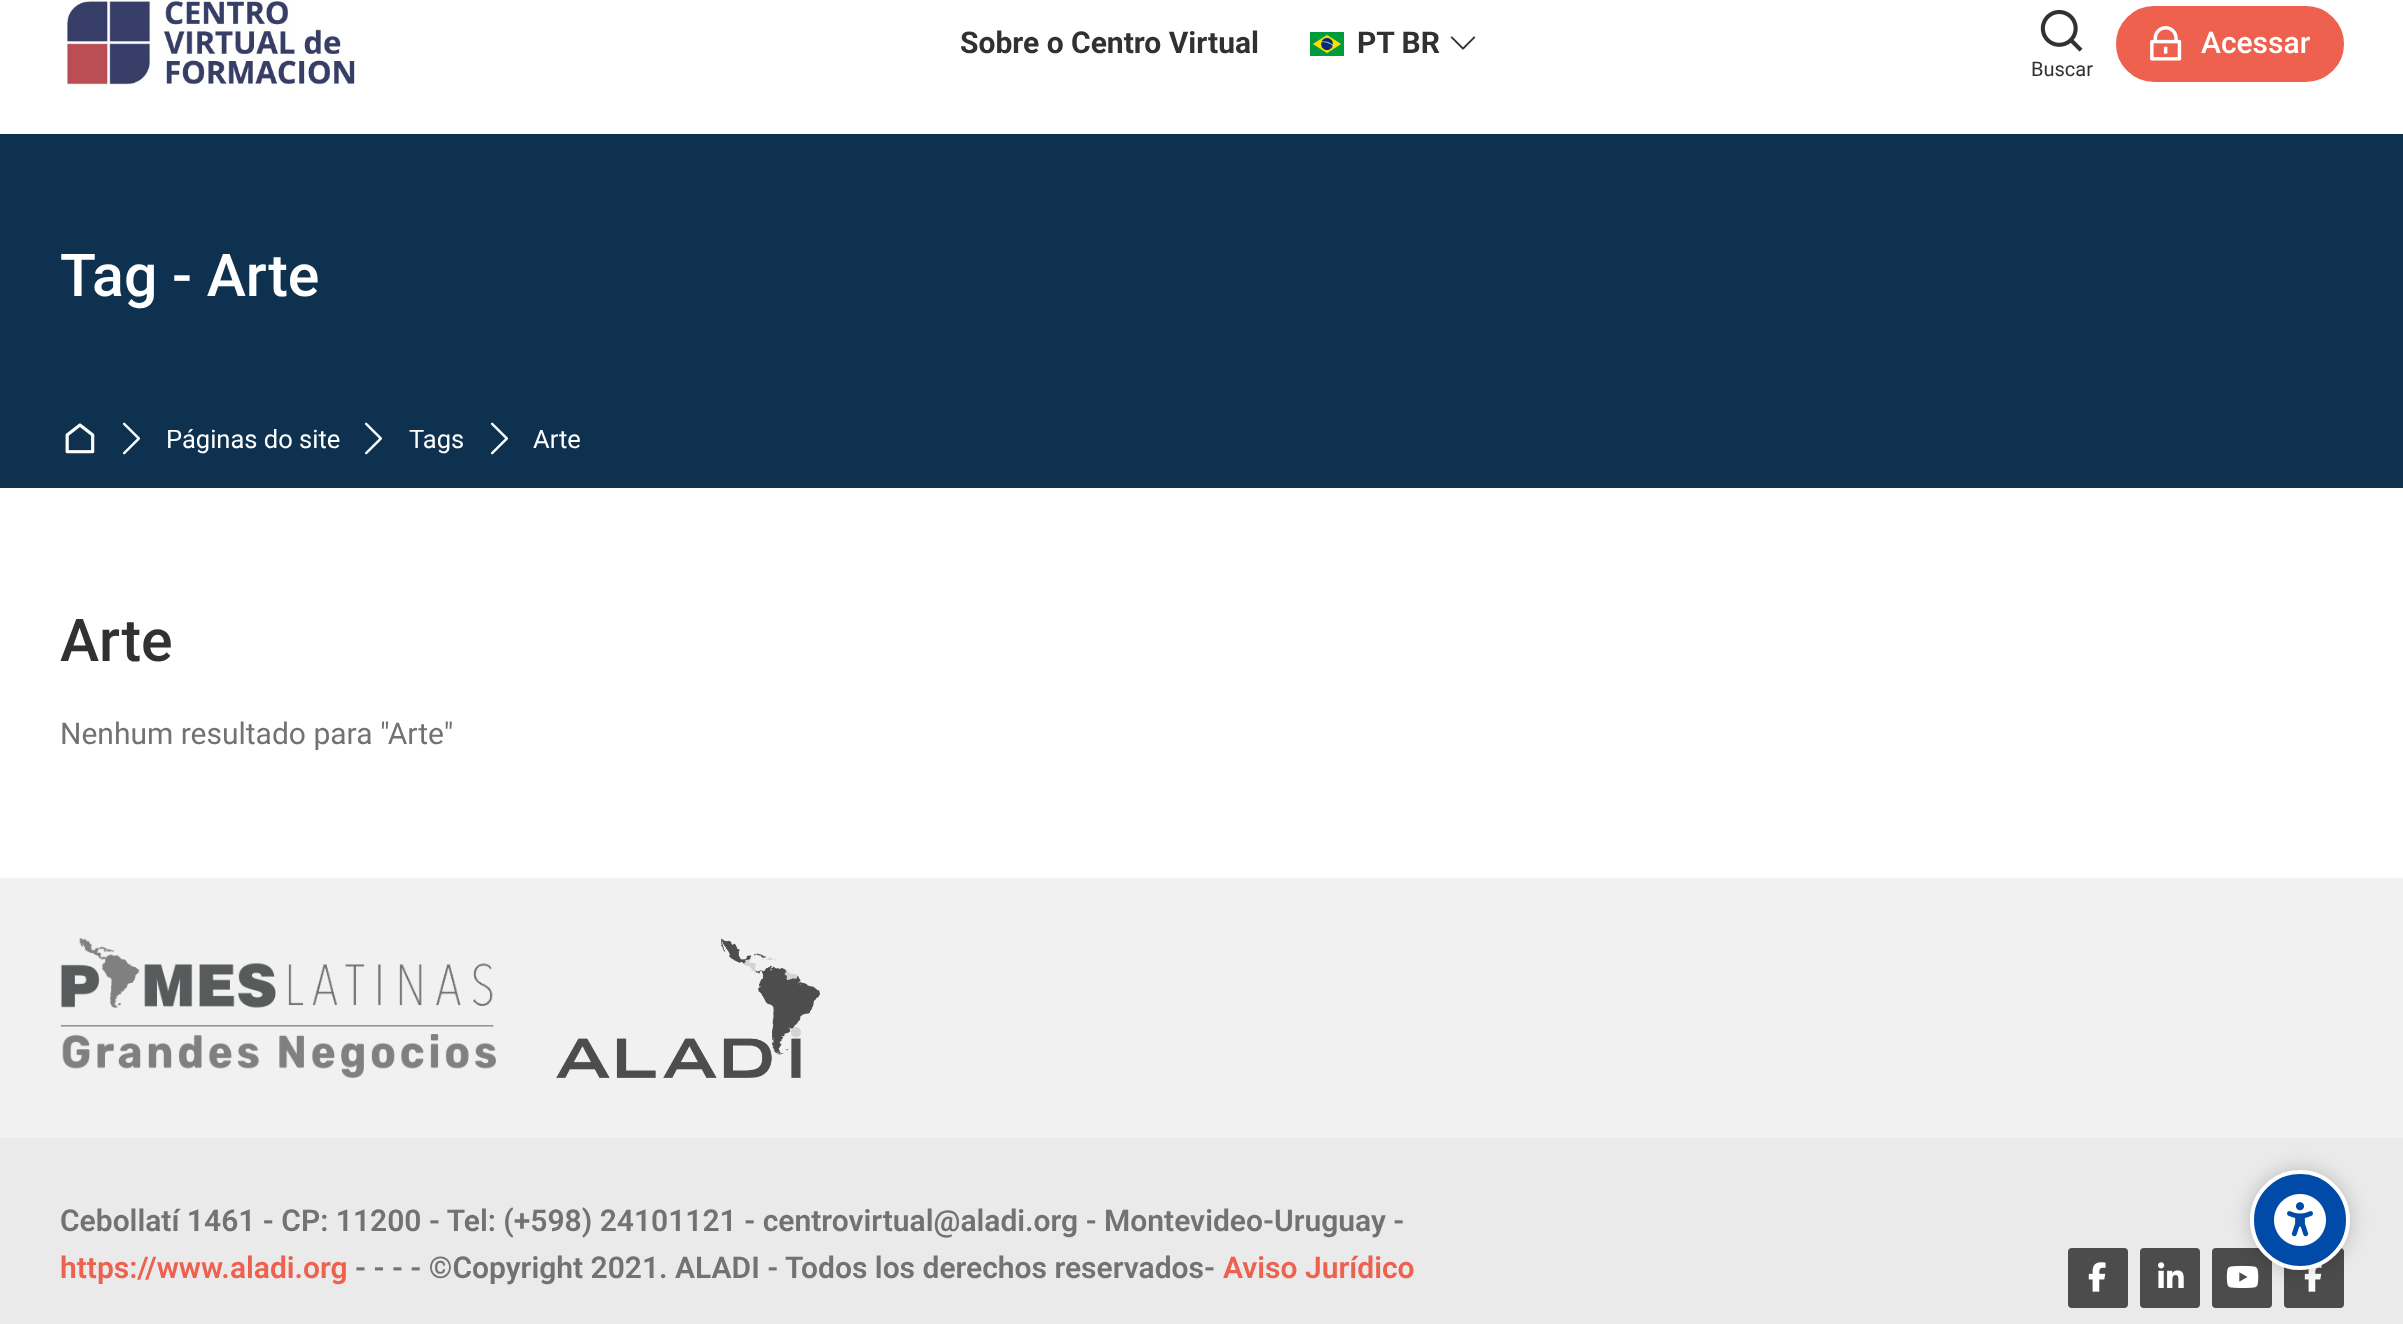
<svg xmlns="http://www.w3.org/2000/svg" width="2403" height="1324">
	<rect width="100%" height="100%" fill="#FFFFFF" />
	<image x="66" y="0" width="289" height="89" href="assets/img1.png" />
	<text x="960" y="53" font-family="Roboto" font-size="30" font-weight="700" fill="#303133">Sobre o Centro Virtual</text>
	<image x="1310" y="32" width="34" height="24" href="assets/img2.png" />
	<text x="1357" y="53" font-family="Roboto" font-size="30" font-weight="700" fill="#303133">PT BR</text>
	<image x="1450" y="36" width="26" height="14" href="assets/img3.png" />
	<rect x="2118" y="8" width="224" height="72" rx="36" fill="#ED614E" stroke="#ED614E" stroke-width="4" />
	<image x="2150" y="26" width="32" height="35" href="assets/img4.png" />
	<text x="2201" y="53" font-family="Roboto" font-size="30" font-weight="500" fill="#FFFFFF">Acessar</text>
	<image x="2040" y="9" width="43" height="43" href="assets/img5.png" />
	<text x="2031" y="76" font-family="Roboto" font-size="20" fill="#303133">Buscar</text>
	<rect x="0" y="134" width="2403" height="354" fill="#0E314F" />
	<text x="60" y="296" font-family="Roboto" font-size="59" font-weight="500" fill="#FFFFFF">Tag - Arte</text>
	<image x="65" y="423" width="30" height="31" href="assets/img6.png" />
	<image x="122" y="422" width="19" height="33" href="assets/img7.png" />
	<text x="166" y="448" font-family="Roboto" font-size="25.5" fill="#FFFFFF">Páginas do site</text>
	<image x="364" y="422" width="19" height="33" href="assets/img7.png" />
	<text x="409" y="448" font-family="Roboto" font-size="25.5" fill="#FFFFFF">Tags</text>
	<image x="490" y="422" width="19" height="33" href="assets/img7.png" />
	<text x="533" y="448" font-family="Roboto" font-size="25.5" fill="#FFFFFF">Arte</text>
	<text x="60" y="661" font-family="Roboto" font-size="59" font-weight="500" fill="#303133">Arte</text>
	<text x="60" y="744" font-family="Roboto" font-size="30" fill="#727272">Nenhum resultado para "Arte"</text>
	<rect x="0" y="878" width="2403" height="260" fill="#F1F1F1" />
	<image x="60" y="938" width="436" height="140" href="assets/img8.png" />
	<image x="556" y="938" width="264" height="140" href="assets/img9.png" />
	<rect x="0" y="1138" width="2403" height="186" fill="#EAEAEA" />
	<text x="60" y="1231" font-family="Roboto" font-size="30" font-weight="600" fill="#727272">Cebollatí 1461 - CP: 11200 - Tel: (+598) 24101121 - centrovirtual@aladi.org - Montevideo-Uruguay -</text>
	<text x="60" y="1278" font-family="Roboto" font-size="30" font-weight="600" fill="#ED614E">https://www.aladi.org</text>
	<text x="355" y="1278" font-family="Roboto" font-size="30" font-weight="600" fill="#727272">- - - - ©Copyright 2021. ALADI - Todos los derechos reservados-</text>
	<text x="1223" y="1278" font-family="Roboto" font-size="30" font-weight="600" fill="#ED614E">Aviso Jurídico</text>
	<rect x="2068" y="1248" width="60" height="60" rx="4" fill="#4C4C4C" />
	<image x="2088" y="1262" width="18" height="30" href="assets/img10.png" />
	<rect x="2140" y="1248" width="60" height="60" rx="4" fill="#4C4C4C" />
	<image x="2158" y="1262" width="26" height="26" href="assets/img11.png" />
	<rect x="2212" y="1248" width="60" height="60" rx="4" fill="#4C4C4C" />
	<image x="2226" y="1265" width="33" height="23" href="assets/img12.png" />
	<rect x="2284" y="1248" width="60" height="60" rx="4" fill="#4C4C4C" />
	<image x="2304" y="1264" width="18" height="28" href="assets/img13.png" />
	<rect x="2250" y="1170" width="100" height="100" rx="50" fill="#000000" fill-opacity="0.2" filter="blur(10px)" />
	<circle cx="2300" cy="1220" r="48" fill="#004BA8" stroke="#FFFFFF" stroke-width="4" />
	<image x="2274" y="1194" width="52" height="52" href="assets/img14.png" />
</svg>
